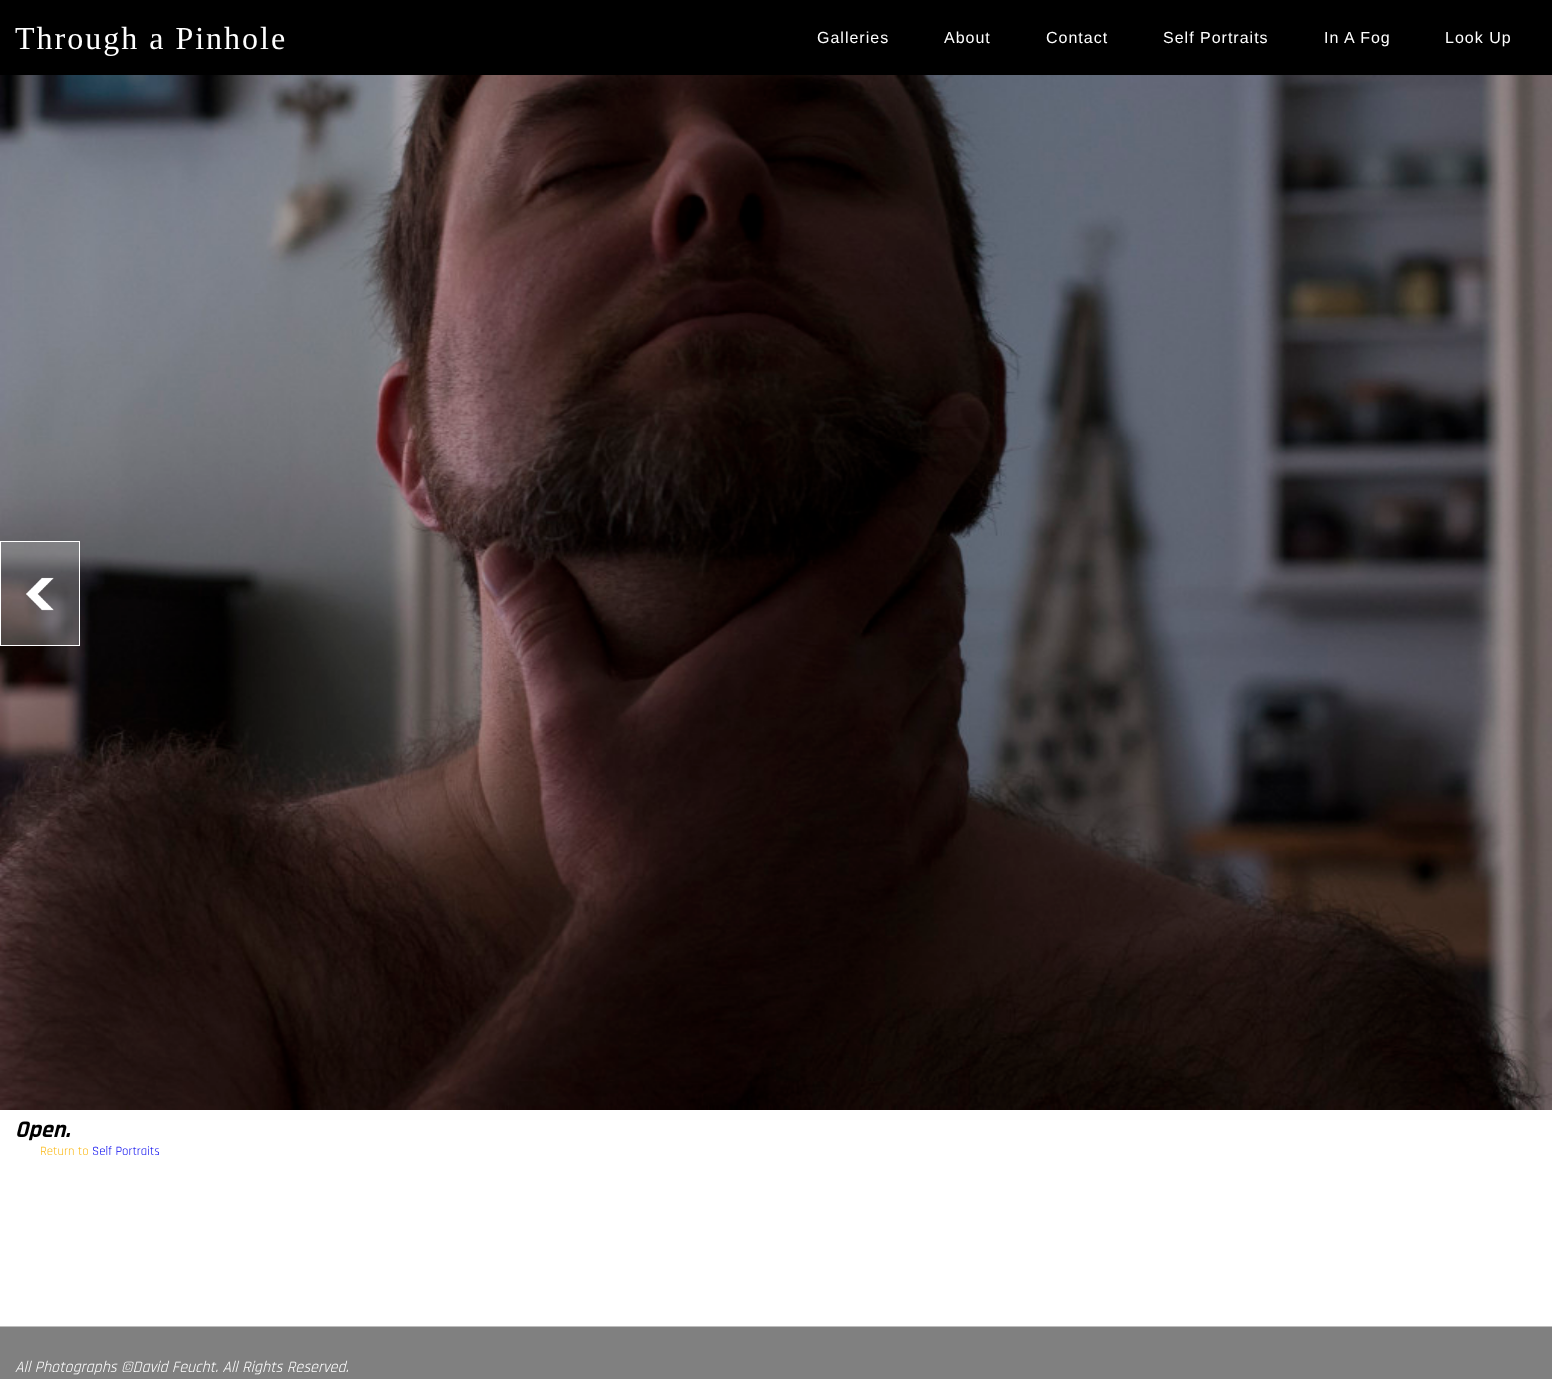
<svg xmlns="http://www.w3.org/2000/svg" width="1552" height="1379">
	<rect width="100%" height="100%" fill="#FFFFFF" />
	<rect x="0" y="0" width="1552" height="75" fill="#000000" />
	<text x="15" y="49" font-family="Liberation Serif" font-size="32" letter-spacing="2" fill="#FFFFFF">Through a Pinhole</text>
	<g font-family="Liberation Sans" font-size="16" letter-spacing="1" fill="#FFFFFF">
		<text x="817" y="43">Galleries</text>
		<text x="944" y="43">About</text>
		<text x="1046" y="43">Contact</text>
		<text x="1163" y="43">Self Portraits</text>
		<text x="1324" y="43">In A Fog</text>
		<text x="1445" y="43">Look Up</text>
	</g>
	<image x="0" y="75" width="1552" height="1035" href="assets/img1.png" />
	<rect x="1" y="542" width="78" height="103" fill="#CCCCCC" fill-opacity="0.3" />
	<image x="26" y="577" width="28" height="34" href="assets/img2.png" />
	<rect x="0.5" y="541.5" width="79" height="104" fill="none" stroke="#FFFFFF" />
	<text x="15" y="1137" font-family="Rajdhani" font-size="24" font-weight="700" font-style="italic" fill="#000000">Open.</text>
	<text x="40" y="1155" font-family="Rajdhani" font-size="12.75" fill="#FBB917">Return to</text>
	<text x="92" y="1155" font-family="Rajdhani" font-size="12.75" fill="#0000EE">Self Portraits</text>
	<rect x="0" y="1327" width="1552" height="52" fill="#808080" />
	<rect x="0" y="1326" width="1552" height="1" fill="#BDBDBD" />
	<text x="15" y="1372" font-family="Rajdhani" font-size="16" font-style="italic" fill="#FFFFFF">All Photographs ©David Feucht. All Rights Reserved.</text>
</svg>
